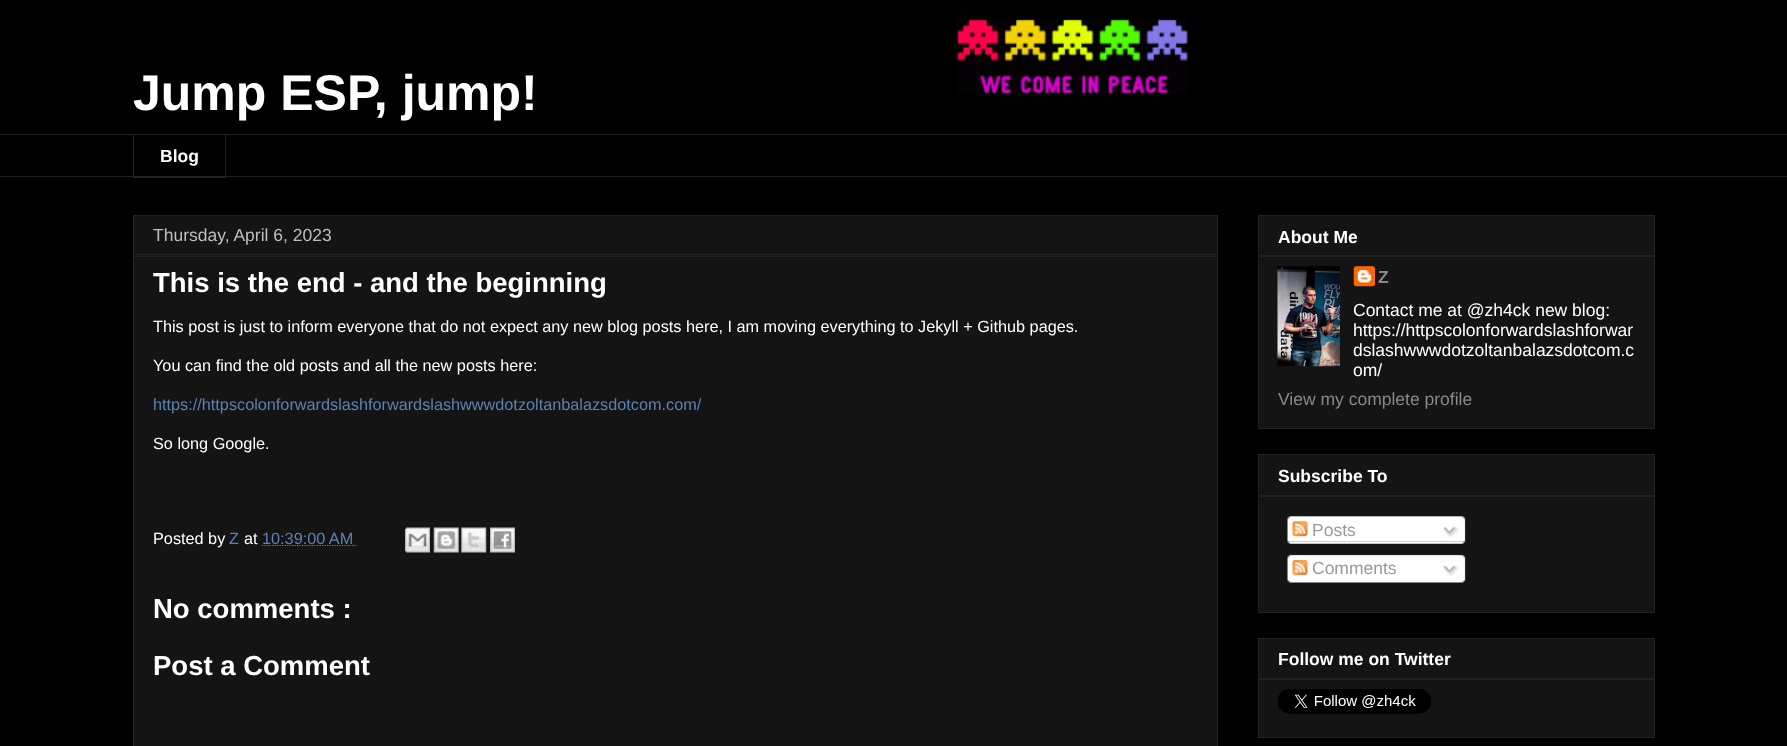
<svg xmlns="http://www.w3.org/2000/svg" width="1787" height="746">
	<rect width="100%" height="100%" fill="#000000" />
	<image x="957" y="19" width="231" height="75" href="assets/img1.png" />
	<text x="133" y="110" font-family="Liberation Sans" font-size="50" font-weight="700" fill="#FFFFFF">Jump ESP, jump!</text>
	<rect x="0" y="134" width="1787" height="1" fill="#222222" />
	<rect x="133.5" y="134.5" width="92" height="43" fill="none" stroke="#222222" />
	<text x="160" y="162" font-family="Liberation Sans" font-size="17.5" font-weight="700" fill="#FFFFFF">Blog</text>
	<rect x="0" y="176" width="1787" height="1" fill="#222222" />
	<rect x="133.5" y="215.5" width="1084" height="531" fill="#141414" stroke="#222222" />
	<rect x="134" y="254" width="1082" height="1" fill="#222222" />
	<text x="153" y="241" font-family="Liberation Sans" font-size="17.5" fill="#BFBFBF">Thursday, April 6, 2023</text>
	<rect x="134" y="256" width="1082" height="1" fill="#222222" />
	<text x="153" y="292" font-family="Liberation Sans" font-size="27.5" font-weight="700" fill="#FFFFFF">This is the end - and the beginning</text>
	<g font-family="Liberation Sans" font-size="16.25" fill="#FFFFFF">
		<text x="153" y="332">This post is just to inform everyone that do not expect any new blog posts here, I am moving everything to Jekyll + Github pages.</text>
		<text x="153" y="371">You can find the old posts and all the new posts here:</text>
	</g>
	<text x="153" y="410" font-family="Liberation Sans" font-size="16.25" fill="#5A83B2">https://httpscolonforwardslashforwardslashwwwdotzoltanbalazsdotcom.com/</text>
	<g font-family="Liberation Sans" font-size="16.25" fill="#FFFFFF">
		<text x="153" y="449">So long Google.</text>
		<text x="153" y="544">Posted by</text>
	</g>
	<text x="229" y="544" font-family="Liberation Sans" font-size="16.25" fill="#5A83B2">Z</text>
	<text x="244" y="544" font-family="Liberation Sans" font-size="16.25" fill="#FFFFFF">at</text>
	<path d="M262 545.5H357.5" fill="none" stroke="#5A83B2" stroke-width="1.2" stroke-dasharray="1.25 1.25" />
	<text x="262" y="544" font-family="Liberation Sans" font-size="16.25" fill="#5A83B2">10:39:00 AM</text>
	<image x="405" y="527" width="25" height="26" href="assets/img2.png" />
	<image x="433" y="527" width="26" height="26" href="assets/img3.png" />
	<image x="461" y="527" width="26" height="26" href="assets/img4.png" />
	<image x="490" y="527" width="25" height="26" href="assets/img5.png" />
	<g font-family="Liberation Sans" font-size="27.5" font-weight="700" fill="#FFFFFF">
		<text x="153" y="618">No comments :</text>
		<text x="153" y="675">Post a Comment</text>
	</g>
	<rect x="1258.5" y="215.5" width="396" height="213" fill="#141414" stroke="#222222" />
	<text x="1278" y="243" font-family="Liberation Sans" font-size="17.5" font-weight="700" fill="#FFFFFF">About Me</text>
	<rect x="1259" y="255" width="395" height="2" fill="#222222" />
	<image x="1277" y="266" width="63" height="101" href="assets/img6.png" />
	<image x="1353" y="266" width="22" height="21" href="assets/img7.png" />
	<text x="1378" y="283" font-family="Liberation Sans" font-size="17.5" font-weight="700" fill="#888888">Z</text>
	<g font-family="Liberation Sans" font-size="17.5" fill="#FFFFFF">
		<text x="1353" y="316">Contact me at @zh4ck new blog:</text>
		<text x="1353" y="336">https://httpscolonforwardslashforwar</text>
		<text x="1353" y="356">dslashwwwdotzoltanbalazsdotcom.c</text>
		<text x="1353" y="376">om/</text>
	</g>
	<text x="1278" y="405" font-family="Liberation Sans" font-size="17.5" fill="#888888">View my complete profile</text>
	<rect x="1258.5" y="454.5" width="396" height="158" fill="#141414" stroke="#222222" />
	<text x="1278" y="482" font-family="Liberation Sans" font-size="17.5" font-weight="700" fill="#FFFFFF">Subscribe To</text>
	<rect x="1259" y="495" width="395" height="2" fill="#222222" />
	<image x="1287" y="516" width="179" height="26" href="assets/img8.png" />
	<image x="1292" y="521" width="16" height="16" href="assets/img9.png" />
	<text x="1312" y="536" font-family="Liberation Sans" font-size="17.5" fill="#999999">Posts</text>
	<image x="1442" y="526" width="17" height="12" href="assets/img10.png" />
	<image x="1287" y="541" width="179" height="3" href="assets/img11.png" />
	<image x="1287" y="554" width="179" height="26" href="assets/img12.png" />
	<image x="1292" y="560" width="16" height="15" href="assets/img13.png" />
	<text x="1312" y="574" font-family="Liberation Sans" font-size="17.5" fill="#999999">Comments</text>
	<image x="1442" y="565" width="17" height="11" href="assets/img14.png" />
	<image x="1287" y="580" width="179" height="3" href="assets/img15.png" />
	<rect x="1258.5" y="638.5" width="396" height="99" fill="#141414" stroke="#222222" />
	<text x="1278" y="665" font-family="Liberation Sans" font-size="17.5" font-weight="700" fill="#FFFFFF">Follow me on Twitter</text>
	<rect x="1259" y="678" width="395" height="2" fill="#222222" />
	<image x="1277" y="689" width="154" height="25" href="assets/img16.png" />
</svg>
